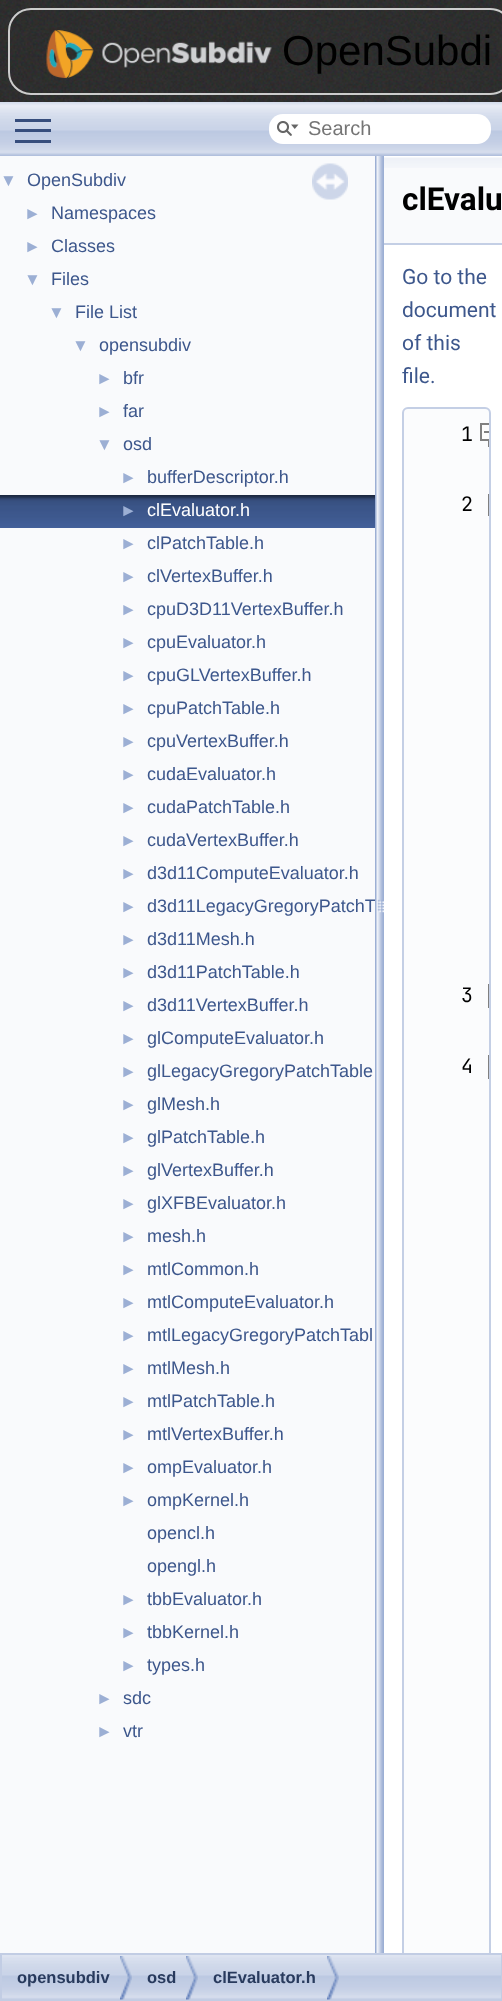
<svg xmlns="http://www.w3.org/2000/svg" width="502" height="2001">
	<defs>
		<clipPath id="clip1"><rect x="384" y="156" width="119" height="1797" /></clipPath>
	</defs>
	<rect width="100%" height="100%" fill="#FFFFFF" />
	<image x="0" y="0" width="502" height="102" href="assets/img1.png" />
	<image x="8" y="8" width="494" height="87" href="assets/img2.png" />
	<rect x="9" y="9" width="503" height="85" rx="22" fill="none" stroke="#CCCCCC" stroke-width="2" />
	<image x="46" y="30" width="226" height="48" href="assets/img3.png" />
	<text x="282" y="65" font-family="Liberation Sans" font-size="42" fill="#000000">OpenSubdi</text>
	<image x="0" y="102" width="502" height="54" href="assets/img4.png" />
	<rect x="15" y="129" width="36" height="3" fill="#364D7C" />
	<rect x="15" y="119" width="36" height="3" fill="#364D7C" />
	<rect x="15" y="140" width="36" height="3" fill="#364D7C" />
	<rect x="269" y="114" width="222" height="30" rx="14" fill="#FFFFFF" />
	<image x="277" y="121" width="22" height="15" href="assets/img5.png" />
	<text x="308" y="135" font-family="Liberation Sans" font-size="20" fill="#757575">Search</text>
	<rect x="0" y="156" width="375" height="1797" fill="#F9FAFC" />
	<image x="312" y="163" width="36" height="37" href="assets/img6.png" />
	<text x="0" y="186" font-family="Liberation Sans" font-size="17" fill="#9CAFD4">▼</text>
	<text x="27" y="186" font-family="Liberation Sans" font-size="18" fill="#3D578C">OpenSubdiv</text>
	<text x="24" y="219" font-family="Liberation Sans" font-size="17" fill="#9CAFD4">►</text>
	<text x="51" y="219" font-family="Liberation Sans" font-size="18" fill="#3D578C">Namespaces</text>
	<text x="24" y="252" font-family="Liberation Sans" font-size="17" fill="#9CAFD4">►</text>
	<text x="51" y="252" font-family="Liberation Sans" font-size="18" fill="#3D578C">Classes</text>
	<text x="24" y="285" font-family="Liberation Sans" font-size="17" fill="#9CAFD4">▼</text>
	<text x="51" y="285" font-family="Liberation Sans" font-size="18" fill="#3D578C">Files</text>
	<text x="48" y="318" font-family="Liberation Sans" font-size="17" fill="#9CAFD4">▼</text>
	<text x="75" y="318" font-family="Liberation Sans" font-size="18" fill="#3D578C">File List</text>
	<text x="72" y="351" font-family="Liberation Sans" font-size="17" fill="#9CAFD4">▼</text>
	<text x="99" y="351" font-family="Liberation Sans" font-size="18" fill="#3D578C">opensubdiv</text>
	<text x="96" y="384" font-family="Liberation Sans" font-size="17" fill="#9CAFD4">►</text>
	<text x="123" y="384" font-family="Liberation Sans" font-size="18" fill="#3D578C">bfr</text>
	<text x="96" y="417" font-family="Liberation Sans" font-size="17" fill="#9CAFD4">►</text>
	<text x="123" y="417" font-family="Liberation Sans" font-size="18" fill="#3D578C">far</text>
	<text x="96" y="450" font-family="Liberation Sans" font-size="17" fill="#9CAFD4">▼</text>
	<text x="123" y="450" font-family="Liberation Sans" font-size="18" fill="#3D578C">osd</text>
	<text x="120" y="483" font-family="Liberation Sans" font-size="17" fill="#9CAFD4">►</text>
	<text x="147" y="483" font-family="Liberation Sans" font-size="18" fill="#3D578C">bufferDescriptor.h</text>
	<image x="0" y="495" width="375" height="33" href="assets/img7.png" />
	<text x="120" y="516" font-family="Liberation Sans" font-size="17" fill="#9CAFD4">►</text>
	<text x="147" y="516" font-family="Liberation Sans" font-size="18" fill="#FFFFFF">clEvaluator.h</text>
	<text x="120" y="549" font-family="Liberation Sans" font-size="17" fill="#9CAFD4">►</text>
	<text x="147" y="549" font-family="Liberation Sans" font-size="18" fill="#3D578C">clPatchTable.h</text>
	<text x="120" y="582" font-family="Liberation Sans" font-size="17" fill="#9CAFD4">►</text>
	<text x="147" y="582" font-family="Liberation Sans" font-size="18" fill="#3D578C">clVertexBuffer.h</text>
	<text x="120" y="615" font-family="Liberation Sans" font-size="17" fill="#9CAFD4">►</text>
	<text x="147" y="615" font-family="Liberation Sans" font-size="18" fill="#3D578C">cpuD3D11VertexBuffer.h</text>
	<text x="120" y="648" font-family="Liberation Sans" font-size="17" fill="#9CAFD4">►</text>
	<text x="147" y="648" font-family="Liberation Sans" font-size="18" fill="#3D578C">cpuEvaluator.h</text>
	<text x="120" y="681" font-family="Liberation Sans" font-size="17" fill="#9CAFD4">►</text>
	<text x="147" y="681" font-family="Liberation Sans" font-size="18" fill="#3D578C">cpuGLVertexBuffer.h</text>
	<text x="120" y="714" font-family="Liberation Sans" font-size="17" fill="#9CAFD4">►</text>
	<text x="147" y="714" font-family="Liberation Sans" font-size="18" fill="#3D578C">cpuPatchTable.h</text>
	<text x="120" y="747" font-family="Liberation Sans" font-size="17" fill="#9CAFD4">►</text>
	<text x="147" y="747" font-family="Liberation Sans" font-size="18" fill="#3D578C">cpuVertexBuffer.h</text>
	<text x="120" y="780" font-family="Liberation Sans" font-size="17" fill="#9CAFD4">►</text>
	<text x="147" y="780" font-family="Liberation Sans" font-size="18" fill="#3D578C">cudaEvaluator.h</text>
	<text x="120" y="813" font-family="Liberation Sans" font-size="17" fill="#9CAFD4">►</text>
	<text x="147" y="813" font-family="Liberation Sans" font-size="18" fill="#3D578C">cudaPatchTable.h</text>
	<text x="120" y="846" font-family="Liberation Sans" font-size="17" fill="#9CAFD4">►</text>
	<text x="147" y="846" font-family="Liberation Sans" font-size="18" fill="#3D578C">cudaVertexBuffer.h</text>
	<text x="120" y="879" font-family="Liberation Sans" font-size="17" fill="#9CAFD4">►</text>
	<text x="147" y="879" font-family="Liberation Sans" font-size="18" fill="#3D578C">d3d11ComputeEvaluator.h</text>
	<text x="120" y="912" font-family="Liberation Sans" font-size="17" fill="#9CAFD4">►</text>
	<text x="147" y="912" font-family="Liberation Sans" font-size="18" fill="#3D578C">d3d11LegacyGregoryPatchT</text>
	<text x="120" y="945" font-family="Liberation Sans" font-size="17" fill="#9CAFD4">►</text>
	<text x="147" y="945" font-family="Liberation Sans" font-size="18" fill="#3D578C">d3d11Mesh.h</text>
	<text x="120" y="978" font-family="Liberation Sans" font-size="17" fill="#9CAFD4">►</text>
	<text x="147" y="978" font-family="Liberation Sans" font-size="18" fill="#3D578C">d3d11PatchTable.h</text>
	<text x="120" y="1011" font-family="Liberation Sans" font-size="17" fill="#9CAFD4">►</text>
	<text x="147" y="1011" font-family="Liberation Sans" font-size="18" fill="#3D578C">d3d11VertexBuffer.h</text>
	<text x="120" y="1044" font-family="Liberation Sans" font-size="17" fill="#9CAFD4">►</text>
	<text x="147" y="1044" font-family="Liberation Sans" font-size="18" fill="#3D578C">glComputeEvaluator.h</text>
	<text x="120" y="1077" font-family="Liberation Sans" font-size="17" fill="#9CAFD4">►</text>
	<text x="147" y="1077" font-family="Liberation Sans" font-size="18" fill="#3D578C">glLegacyGregoryPatchTable</text>
	<text x="120" y="1110" font-family="Liberation Sans" font-size="17" fill="#9CAFD4">►</text>
	<text x="147" y="1110" font-family="Liberation Sans" font-size="18" fill="#3D578C">glMesh.h</text>
	<text x="120" y="1143" font-family="Liberation Sans" font-size="17" fill="#9CAFD4">►</text>
	<text x="147" y="1143" font-family="Liberation Sans" font-size="18" fill="#3D578C">glPatchTable.h</text>
	<text x="120" y="1176" font-family="Liberation Sans" font-size="17" fill="#9CAFD4">►</text>
	<text x="147" y="1176" font-family="Liberation Sans" font-size="18" fill="#3D578C">glVertexBuffer.h</text>
	<text x="120" y="1209" font-family="Liberation Sans" font-size="17" fill="#9CAFD4">►</text>
	<text x="147" y="1209" font-family="Liberation Sans" font-size="18" fill="#3D578C">glXFBEvaluator.h</text>
	<text x="120" y="1242" font-family="Liberation Sans" font-size="17" fill="#9CAFD4">►</text>
	<text x="147" y="1242" font-family="Liberation Sans" font-size="18" fill="#3D578C">mesh.h</text>
	<text x="120" y="1275" font-family="Liberation Sans" font-size="17" fill="#9CAFD4">►</text>
	<text x="147" y="1275" font-family="Liberation Sans" font-size="18" fill="#3D578C">mtlCommon.h</text>
	<text x="120" y="1308" font-family="Liberation Sans" font-size="17" fill="#9CAFD4">►</text>
	<text x="147" y="1308" font-family="Liberation Sans" font-size="18" fill="#3D578C">mtlComputeEvaluator.h</text>
	<text x="120" y="1341" font-family="Liberation Sans" font-size="17" fill="#9CAFD4">►</text>
	<text x="147" y="1341" font-family="Liberation Sans" font-size="18" fill="#3D578C">mtlLegacyGregoryPatchTabl</text>
	<text x="120" y="1374" font-family="Liberation Sans" font-size="17" fill="#9CAFD4">►</text>
	<text x="147" y="1374" font-family="Liberation Sans" font-size="18" fill="#3D578C">mtlMesh.h</text>
	<text x="120" y="1407" font-family="Liberation Sans" font-size="17" fill="#9CAFD4">►</text>
	<text x="147" y="1407" font-family="Liberation Sans" font-size="18" fill="#3D578C">mtlPatchTable.h</text>
	<text x="120" y="1440" font-family="Liberation Sans" font-size="17" fill="#9CAFD4">►</text>
	<text x="147" y="1440" font-family="Liberation Sans" font-size="18" fill="#3D578C">mtlVertexBuffer.h</text>
	<text x="120" y="1473" font-family="Liberation Sans" font-size="17" fill="#9CAFD4">►</text>
	<text x="147" y="1473" font-family="Liberation Sans" font-size="18" fill="#3D578C">ompEvaluator.h</text>
	<text x="120" y="1506" font-family="Liberation Sans" font-size="17" fill="#9CAFD4">►</text>
	<g font-family="Liberation Sans" font-size="18" fill="#3D578C">
		<text x="147" y="1506">ompKernel.h</text>
		<text x="147" y="1539">opencl.h</text>
		<text x="147" y="1572">opengl.h</text>
	</g>
	<text x="120" y="1605" font-family="Liberation Sans" font-size="17" fill="#9CAFD4">►</text>
	<text x="147" y="1605" font-family="Liberation Sans" font-size="18" fill="#3D578C">tbbEvaluator.h</text>
	<text x="120" y="1638" font-family="Liberation Sans" font-size="17" fill="#9CAFD4">►</text>
	<text x="147" y="1638" font-family="Liberation Sans" font-size="18" fill="#3D578C">tbbKernel.h</text>
	<text x="120" y="1671" font-family="Liberation Sans" font-size="17" fill="#9CAFD4">►</text>
	<text x="147" y="1671" font-family="Liberation Sans" font-size="18" fill="#3D578C">types.h</text>
	<text x="96" y="1704" font-family="Liberation Sans" font-size="17" fill="#9CAFD4">►</text>
	<text x="123" y="1704" font-family="Liberation Sans" font-size="18" fill="#3D578C">sdc</text>
	<text x="96" y="1737" font-family="Liberation Sans" font-size="17" fill="#9CAFD4">►</text>
	<text x="123" y="1737" font-family="Liberation Sans" font-size="18" fill="#3D578C">vtr</text>
	<image x="375" y="156" width="9" height="1797" href="assets/img8.png" />
	<rect x="384" y="168" width="118" height="75" fill="#F9FAFC" />
	<image x="384" y="156" width="118" height="12" href="assets/img9.png" />
	<rect x="384" y="243" width="118" height="2" fill="#C4CFE5" />
	<text x="402" y="210" font-family="Roboto" font-size="31.5" font-weight="700" fill="#000000">clEvalu</text>
	<g font-family="Roboto" font-size="21" fill="#3D578C">
		<text x="402" y="284">Go to the</text>
		<text x="402" y="317">document</text>
		<text x="402" y="350">of this</text>
		<text x="402" y="383">file.</text>
	</g>
	<path d="M408 407H485C488.5 407 491 409.5 491 413V1953H402V413C402 409.5 404.5 407 408 407Z" fill="#FBFCFD" />
	<image x="2" y="1955" width="499" height="44" href="assets/img10.png" />
	<rect x="1" y="1954" width="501" height="46" fill="none" stroke="#C2CDE4" stroke-width="2" />
	<g clip-path="url(#clip1)">
		<rect x="403" y="408" width="87" height="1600" rx="5" fill="none" stroke="#C4CFE5" stroke-width="2" />
	</g>
	<rect x="488" y="441" width="1" height="6" fill="#808080" />
	<text x="461" y="441" font-family="JetBrains Mono" font-size="20" fill="#000000">1</text>
	<rect x="480" y="423" width="9" height="18" fill="#808080" />
	<rect x="482" y="425" width="7" height="14" fill="#FCFCFC" />
	<rect x="484" y="431" width="5" height="2" fill="#808080" />
	<rect x="488" y="494" width="1" height="22" fill="#808080" />
	<text x="461" y="511" font-family="JetBrains Mono" font-size="20" fill="#000000">2</text>
	<rect x="488" y="984" width="1" height="24" fill="#808080" />
	<text x="461" y="1002" font-family="JetBrains Mono" font-size="20" fill="#000000">3</text>
	<rect x="488" y="1055" width="1" height="24" fill="#808080" />
	<text x="461" y="1073" font-family="JetBrains Mono" font-size="20" fill="#000000">4</text>
	<image x="120" y="1956" width="12" height="44" href="assets/img11.png" />
	<text x="17" y="1983" font-family="Liberation Sans" font-size="16.5" font-weight="700" fill="#283A5D">opensubdiv</text>
	<image x="186" y="1956" width="12" height="44" href="assets/img11.png" />
	<text x="147" y="1983" font-family="Liberation Sans" font-size="16.5" font-weight="700" fill="#283A5D">osd</text>
	<image x="327" y="1956" width="12" height="44" href="assets/img12.png" />
	<text x="213" y="1983" font-family="Liberation Sans" font-size="16.5" font-weight="700" fill="#283A5D">clEvaluator.h</text>
</svg>
